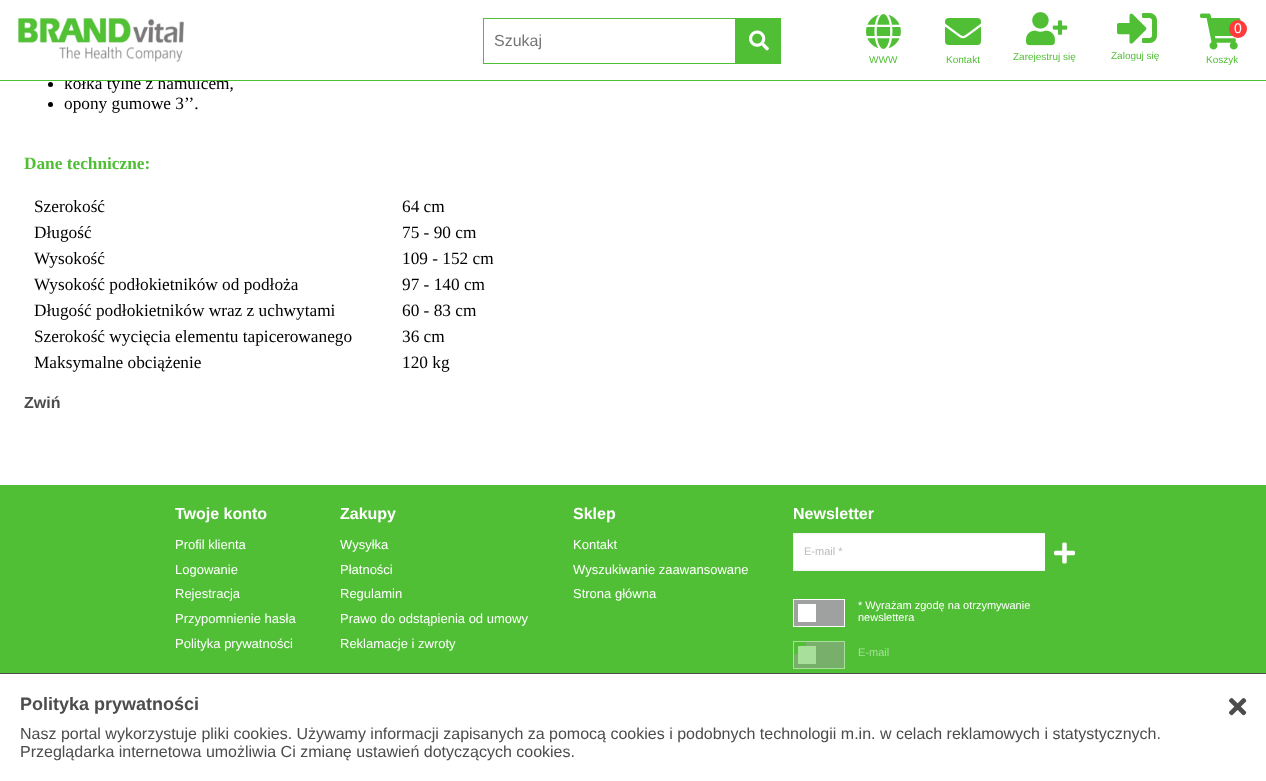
<svg xmlns="http://www.w3.org/2000/svg" width="1266" height="781">
	<rect width="100%" height="100%" fill="#FFFFFF" />
	<text x="64" y="89" font-family="Liberation Serif" font-size="17.3" fill="#000000">kółka tylne z hamulcem,</text>
	<rect x="64" y="76" width="136" height="4" fill="#FFFFFF" />
	<rect x="0" y="80" width="1266" height="1" fill="#51BF36" />
	<image x="18" y="18" width="166" height="44" href="assets/img1.png" />
	<rect x="483.5" y="18.5" width="252" height="45" fill="none" stroke="#51BF36" />
	<text x="494" y="46" font-family="Liberation Sans" font-size="16" fill="#757575">Szukaj</text>
	<rect x="736" y="18" width="45" height="46" fill="#51BF36" />
	<image x="749" y="30" width="20" height="21" href="assets/img2.png" />
	<image x="1200" y="13" width="41" height="37" href="assets/img3.png" />
	<circle cx="1238" cy="29" r="9" fill="#FF3A3A" />
	<text x="1234" y="33" font-family="Liberation Sans" font-size="14" fill="#FFFFFF">0</text>
	<text x="1206" y="63" font-family="Liberation Sans" font-size="10" fill="#51BF36">Koszyk</text>
	<image x="866" y="14" width="35" height="35" href="assets/img4.png" />
	<text x="869" y="63" font-family="Liberation Sans" font-size="10" fill="#51BF36">WWW</text>
	<image x="945" y="18" width="36" height="27" href="assets/img5.png" />
	<text x="946" y="63" font-family="Liberation Sans" font-size="10" fill="#51BF36">Kontakt</text>
	<image x="1026" y="12" width="42" height="34" href="assets/img6.png" />
	<text x="1013" y="60" font-family="Liberation Sans" font-size="10" fill="#51BF36">Zarejestruj się</text>
	<image x="1117" y="13" width="40" height="31" href="assets/img7.png" />
	<text x="1111" y="59" font-family="Liberation Sans" font-size="10" fill="#51BF36">Zaloguj się</text>
	<circle cx="50.5" cy="84.5" r="2.5" fill="#000000" />
	<circle cx="50.5" cy="104.5" r="2.5" fill="#000000" />
	<text x="64" y="109" font-family="Liberation Serif" font-size="17.3" fill="#000000">opony gumowe 3’’.</text>
	<text x="24" y="169" font-family="Liberation Serif" font-size="17.3" font-weight="700" fill="#51BF36">Dane techniczne:</text>
	<g font-family="Liberation Serif" font-size="17.3" fill="#000000">
		<text x="34" y="212">Szerokość</text>
		<text x="402" y="212">64 cm</text>
		<text x="34" y="238">Długość</text>
		<text x="402" y="238">75 - 90 cm</text>
		<text x="34" y="264">Wysokość</text>
		<text x="402" y="264">109 - 152 cm</text>
		<text x="34" y="290">Wysokość podłokietników od podłoża</text>
		<text x="402" y="290">97 - 140 cm</text>
		<text x="34" y="316">Długość podłokietników wraz z uchwytami</text>
		<text x="402" y="316">60 - 83 cm</text>
		<text x="34" y="342">Szerokość wycięcia elementu tapicerowanego</text>
		<text x="402" y="342">36 cm</text>
		<text x="34" y="368">Maksymalne obciążenie</text>
		<text x="402" y="368">120 kg</text>
	</g>
	<text x="24" y="408" font-family="Liberation Sans" font-size="16" font-weight="700" fill="#4C4C4C">Zwiń</text>
	<rect x="0" y="485" width="1266" height="188" fill="#51BF36" />
	<text x="175" y="519" font-family="Liberation Sans" font-size="16" font-weight="700" fill="#FFFFFF">Twoje konto</text>
	<g font-family="Liberation Sans" font-size="13" fill="#FFFFFF">
		<text x="175" y="549">Profil klienta</text>
		<text x="175" y="574">Logowanie</text>
		<text x="175" y="598">Rejestracja</text>
		<text x="175" y="623">Przypomnienie hasła</text>
		<text x="175" y="648">Polityka prywatności</text>
	</g>
	<text x="340" y="519" font-family="Liberation Sans" font-size="16" font-weight="700" fill="#FFFFFF">Zakupy</text>
	<g font-family="Liberation Sans" font-size="13" fill="#FFFFFF">
		<text x="340" y="549">Wysyłka</text>
		<text x="340" y="574">Płatności</text>
		<text x="340" y="598">Regulamin</text>
		<text x="340" y="623">Prawo do odstąpienia od umowy</text>
		<text x="340" y="648">Reklamacje i zwroty</text>
	</g>
	<text x="573" y="519" font-family="Liberation Sans" font-size="16" font-weight="700" fill="#FFFFFF">Sklep</text>
	<g font-family="Liberation Sans" font-size="13" fill="#FFFFFF">
		<text x="573" y="549">Kontakt</text>
		<text x="573" y="574">Wyszukiwanie zaawansowane</text>
		<text x="573" y="598">Strona główna</text>
	</g>
	<text x="793" y="519" font-family="Liberation Sans" font-size="16" font-weight="700" fill="#FFFFFF">Newsletter</text>
	<rect x="794" y="534" width="251" height="36" fill="#FFFFFF" />
	<rect x="793.5" y="533.5" width="253" height="37" fill="none" stroke="#F2F5F5" />
	<rect x="1045" y="533" width="2" height="38" fill="#51BF36" />
	<image x="1054" y="542" width="21" height="22" href="assets/img8.png" />
	<text x="804" y="555" font-family="Liberation Sans" font-size="11" fill="#BBBBBB">E-mail *</text>
	<rect x="793.5" y="599.5" width="51" height="27" fill="#9FA0A0" stroke="#FFFFFF" />
	<g font-family="Liberation Sans" font-size="11" fill="#FFFFFF">
		<text x="858" y="609">* Wyrażam zgodę na otrzymywanie</text>
		<text x="858" y="621">newslettera</text>
	</g>
	<rect x="798" y="604" width="18" height="18" fill="#FFFFFF" />
	<rect x="794" y="642" width="50" height="26" fill="#78B06B" />
	<rect x="793" y="641" width="13" height="13" rx="2" fill="#51BF36" />
	<rect x="793.5" y="641.5" width="12" height="12" rx="1.5" fill="none" stroke="#51BF36" stroke-opacity="0.3" />
	<rect x="793.5" y="641.5" width="51" height="27" fill="none" stroke="#A8DF9B" />
	<rect x="798" y="646" width="18" height="18" fill="#A8DF9B" />
	<text x="858" y="656" font-family="Liberation Sans" font-size="11" fill="#A8DF9B">E-mail</text>
	<rect x="0" y="673" width="1266" height="1" fill="#4C4C4C" />
	<text x="20" y="710" font-family="Liberation Sans" font-size="18" font-weight="700" fill="#4C4C4C">Polityka prywatności</text>
	<image x="1229" y="698" width="18" height="18" href="assets/img9.png" />
	<g font-family="Liberation Sans" font-size="16" fill="#4C4C4C">
		<text x="20" y="739">Nasz portal wykorzystuje pliki cookies. Używamy informacji zapisanych za pomocą cookies i podobnych technologii m.in. w celach reklamowych i statystycznych.</text>
		<text x="20" y="757">Przeglądarka internetowa umożliwia Ci zmianę ustawień dotyczących cookies.</text>
	</g>
</svg>
